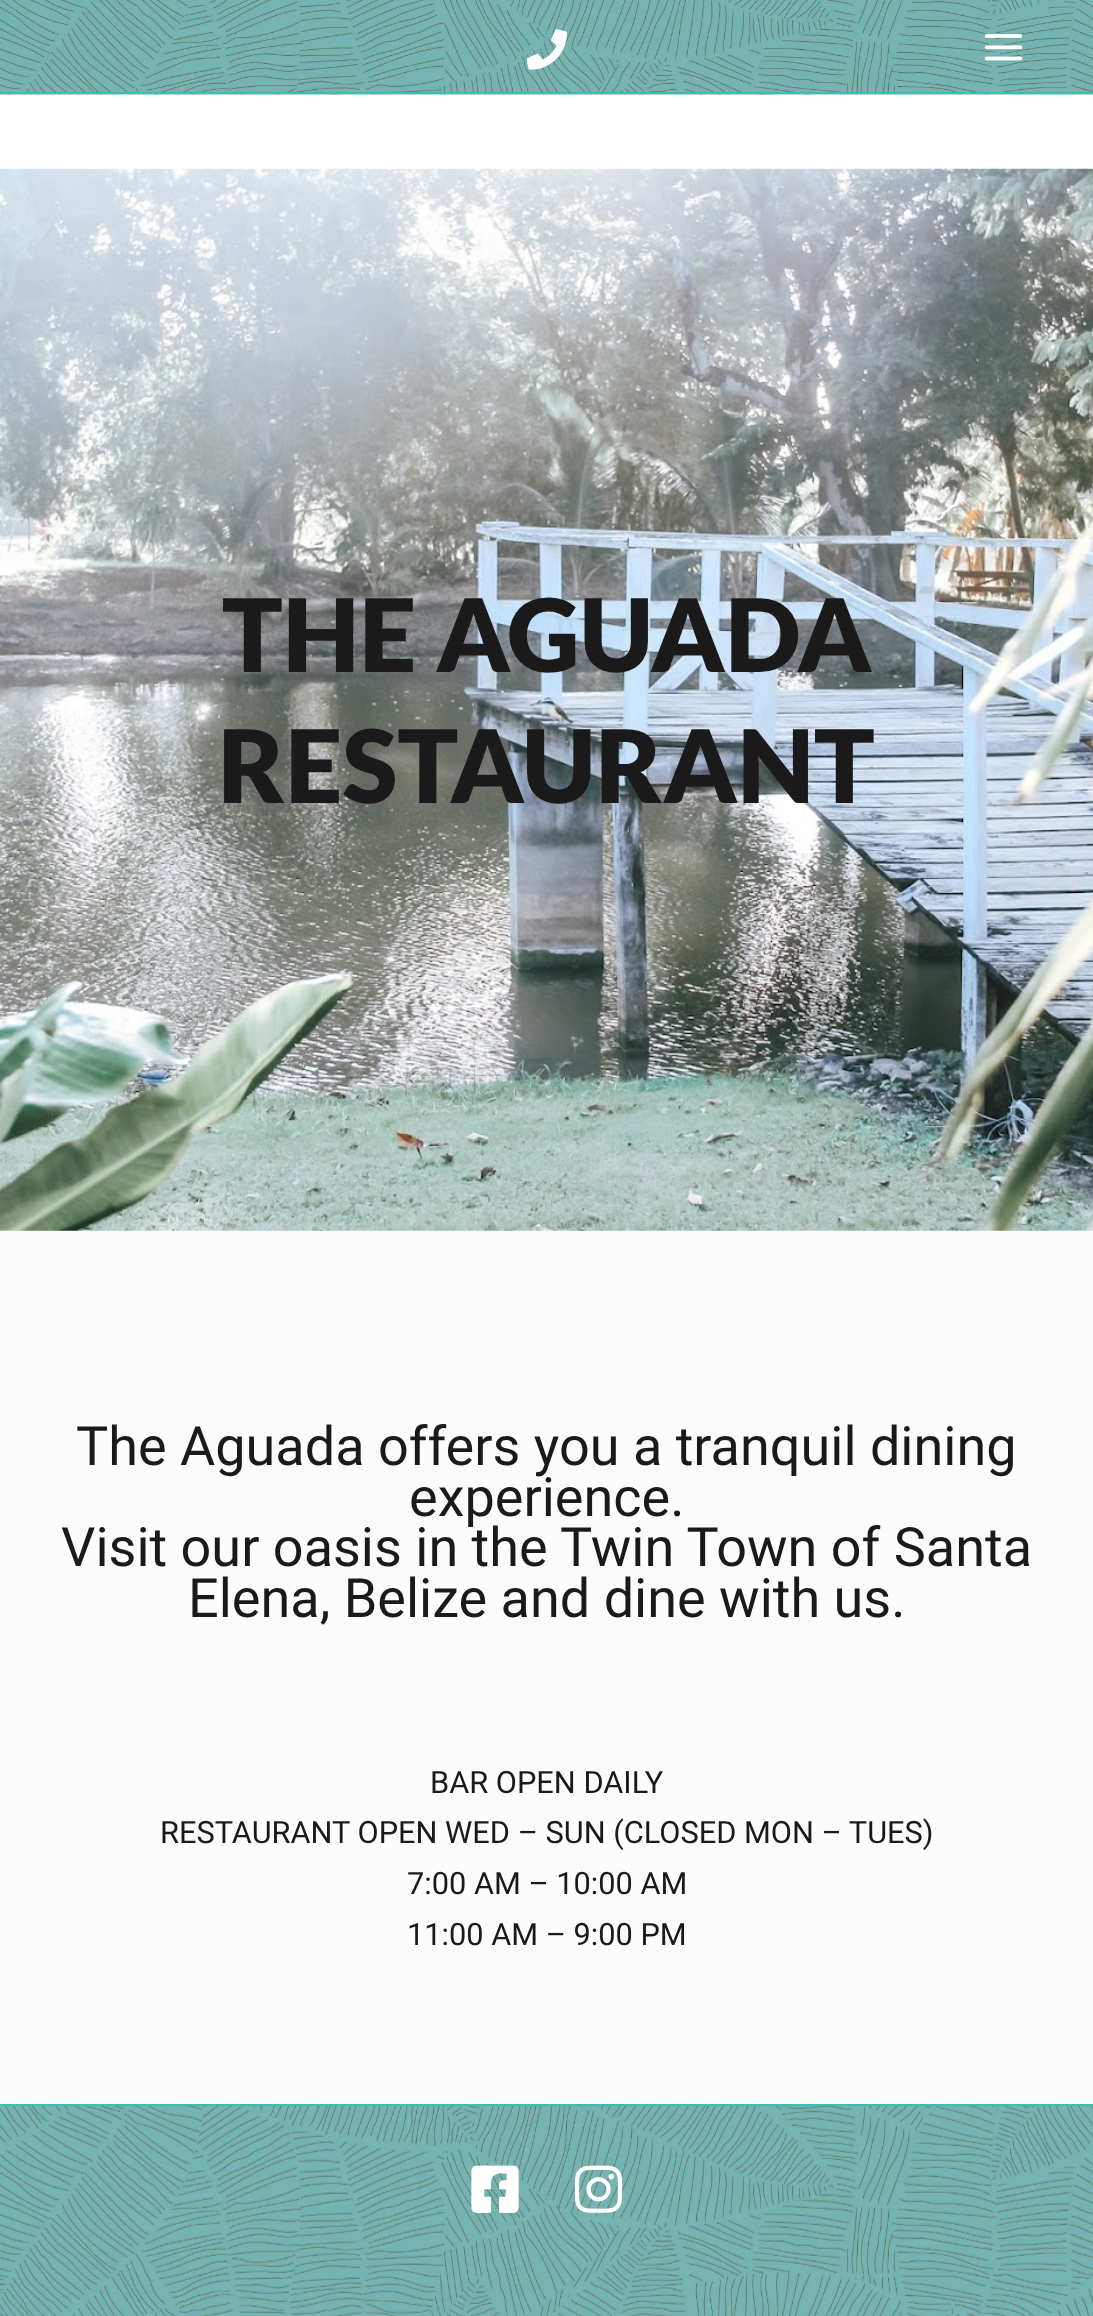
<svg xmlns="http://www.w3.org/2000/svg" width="1093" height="2316">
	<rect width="100%" height="100%" fill="#FFFFFF" />
	<image x="0" y="0" width="1093" height="95" href="assets/img1.png" />
	<rect x="0" y="92" width="1093" height="2" fill="#3DBEB0" />
	<image x="527" y="29" width="40" height="41" href="assets/img2.png" />
	<image x="984" y="34" width="39" height="27" href="assets/img3.png" />
	<image x="0" y="168" width="1093" height="1063" href="assets/img4.png" />
	<g font-family="Lato" font-size="101.25" font-weight="900" fill="#1B1A1A">
		<text x="222" y="672">THE AGUADA</text>
		<text x="218" y="803">RESTAURANT</text>
	</g>
	<rect x="0" y="1231" width="1093" height="873" fill="#FCFCFC" />
	<g font-family="Roboto" font-size="54" fill="#1B1A1A">
		<text x="76" y="1465">The Aguada offers you a tranquil dining</text>
		<text x="409" y="1516">experience.</text>
		<text x="61" y="1566">Visit our oasis in the Twin Town of Santa</text>
		<text x="188" y="1617">Elena, Belize and dine with us.</text>
	</g>
	<g font-family="Roboto" font-size="30.75" fill="#1B1A1A">
		<text x="430" y="1793">BAR OPEN DAILY</text>
		<text x="160" y="1843">RESTAURANT OPEN WED – SUN (CLOSED MON – TUES)</text>
		<text x="407" y="1894">7:00 AM – 10:00 AM</text>
		<text x="407" y="1945">11:00 AM – 9:00 PM</text>
	</g>
	<image x="0" y="2106" width="1093" height="210" href="assets/img5.png" />
	<rect x="0" y="2104" width="1093" height="2" fill="#3DBEB0" />
	<image x="471" y="2165" width="48" height="48" href="assets/img6.png" />
	<image x="574" y="2165" width="49" height="48" href="assets/img7.png" />
</svg>
